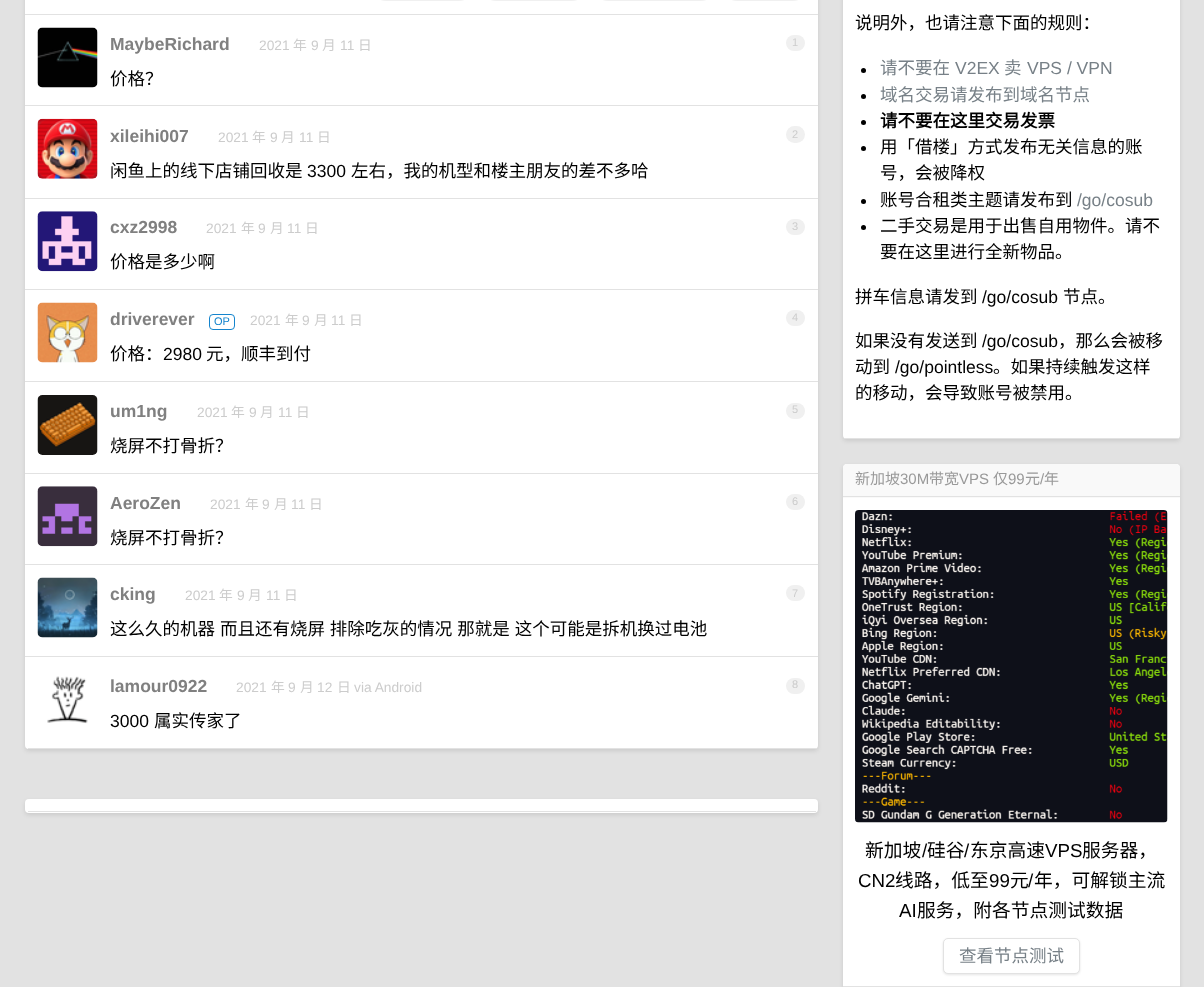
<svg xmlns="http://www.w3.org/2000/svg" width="1204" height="987">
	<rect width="100%" height="100%" fill="#E2E2E2" />
	<rect x="25" y="-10" width="793" height="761" rx="4" fill="#000000" fill-opacity="0.1" filter="blur(2px)" />
	<rect x="25" y="-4" width="793" height="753" rx="4" fill="#FFFFFF" />
	<rect x="28" y="748" width="788" height="1" fill="#E2E2E2" />
	<rect x="25" y="14" width="793" height="1" fill="#E2E2E2" />
	<rect x="374" y="-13" width="97" height="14" rx="13" fill="#F0F0F0" />
	<rect x="484" y="-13" width="100" height="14" rx="13" fill="#F0F0F0" />
	<rect x="596" y="-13" width="117" height="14" rx="13" fill="#F0F0F0" />
	<rect x="725" y="-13" width="80" height="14" rx="13" fill="#F0F0F0" />
	<rect x="25" y="105" width="793" height="1" fill="#E2E2E2" />
	<image x="37" y="27" width="61" height="61" href="assets/img1.png" />
	<text x="110" y="50" font-family="Liberation Sans" font-size="17.5" font-weight="700" fill="#808080">MaybeRichard</text>
	<text x="259" y="50" font-family="Liberation Sans" font-size="13.75" fill="#CCCCCC">2021</text>
	<text x="293" y="50" font-family="Noto Sans CJK SC" font-size="13.75" fill="#CCCCCC">年</text>
	<text x="311" y="50" font-family="Liberation Sans" font-size="13.75" fill="#CCCCCC">9</text>
	<text x="322" y="50" font-family="Noto Sans CJK SC" font-size="13.75" fill="#CCCCCC">月</text>
	<text x="340" y="50" font-family="Liberation Sans" font-size="13.75" fill="#CCCCCC">11</text>
	<text x="358" y="50" font-family="Noto Sans CJK SC" font-size="13.75" fill="#CCCCCC">日</text>
	<rect x="786" y="35" width="19" height="16" rx="8" fill="#F0F0F0" />
	<text x="792" y="46" font-family="Liberation Sans" font-size="11" fill="#CCCCCC">1</text>
	<text x="110" y="85" font-family="Noto Sans CJK SC" font-size="17.5" fill="#000000">价格？</text>
	<rect x="25" y="198" width="793" height="1" fill="#E2E2E2" />
	<image x="37" y="118" width="61" height="61" href="assets/img2.png" />
	<text x="110" y="142" font-family="Liberation Sans" font-size="17.5" font-weight="700" fill="#808080">xileihi007</text>
	<text x="218" y="142" font-family="Liberation Sans" font-size="13.75" fill="#CCCCCC">2021</text>
	<text x="252" y="142" font-family="Noto Sans CJK SC" font-size="13.75" fill="#CCCCCC">年</text>
	<text x="270" y="142" font-family="Liberation Sans" font-size="13.75" fill="#CCCCCC">9</text>
	<text x="281" y="142" font-family="Noto Sans CJK SC" font-size="13.75" fill="#CCCCCC">月</text>
	<text x="299" y="142" font-family="Liberation Sans" font-size="13.75" fill="#CCCCCC">11</text>
	<text x="317" y="142" font-family="Noto Sans CJK SC" font-size="13.75" fill="#CCCCCC">日</text>
	<rect x="786" y="126" width="19" height="17" rx="8.5" fill="#F0F0F0" />
	<text x="792" y="138" font-family="Liberation Sans" font-size="11" fill="#CCCCCC">2</text>
	<text x="110" y="177" font-family="Noto Sans CJK SC" font-size="17.5" fill="#000000">闲鱼上的线下店铺回收是</text>
	<text x="307" y="177" font-family="Liberation Sans" font-size="17.5" fill="#000000">3300</text>
	<text x="351" y="177" font-family="Noto Sans CJK SC" font-size="17.5" fill="#000000">左右，我的机型和楼主朋友的差不多哈</text>
	<rect x="25" y="289" width="793" height="1" fill="#E2E2E2" />
	<image x="37" y="211" width="61" height="61" href="assets/img3.png" />
	<text x="110" y="233" font-family="Liberation Sans" font-size="17.5" font-weight="700" fill="#808080">cxz2998</text>
	<text x="206" y="233" font-family="Liberation Sans" font-size="13.75" fill="#CCCCCC">2021</text>
	<text x="241" y="233" font-family="Noto Sans CJK SC" font-size="13.75" fill="#CCCCCC">年</text>
	<text x="258" y="233" font-family="Liberation Sans" font-size="13.75" fill="#CCCCCC">9</text>
	<text x="270" y="233" font-family="Noto Sans CJK SC" font-size="13.75" fill="#CCCCCC">月</text>
	<text x="287" y="233" font-family="Liberation Sans" font-size="13.75" fill="#CCCCCC">11</text>
	<text x="305" y="233" font-family="Noto Sans CJK SC" font-size="13.75" fill="#CCCCCC">日</text>
	<rect x="786" y="219" width="19" height="16" rx="8" fill="#F0F0F0" />
	<text x="792" y="230" font-family="Liberation Sans" font-size="11" fill="#CCCCCC">3</text>
	<text x="110" y="268" font-family="Noto Sans CJK SC" font-size="17.5" fill="#000000">价格是多少啊</text>
	<rect x="25" y="381" width="793" height="1" fill="#E2E2E2" />
	<image x="37" y="302" width="61" height="61" href="assets/img4.png" />
	<text x="110" y="325" font-family="Liberation Sans" font-size="17.5" font-weight="700" fill="#808080">driverever</text>
	<rect x="209.5" y="314.5" width="25" height="15" rx="3.5" fill="none" stroke="#1484CD" />
	<text x="214" y="325" font-family="Liberation Sans" font-size="11" fill="#1484CD">OP</text>
	<text x="250" y="325" font-family="Liberation Sans" font-size="13.75" fill="#CCCCCC">2021</text>
	<text x="285" y="325" font-family="Noto Sans CJK SC" font-size="13.75" fill="#CCCCCC">年</text>
	<text x="302" y="325" font-family="Liberation Sans" font-size="13.75" fill="#CCCCCC">9</text>
	<text x="314" y="325" font-family="Noto Sans CJK SC" font-size="13.75" fill="#CCCCCC">月</text>
	<text x="331" y="325" font-family="Liberation Sans" font-size="13.75" fill="#CCCCCC">11</text>
	<text x="349" y="325" font-family="Noto Sans CJK SC" font-size="13.75" fill="#CCCCCC">日</text>
	<rect x="786" y="310" width="19" height="16" rx="8" fill="#F0F0F0" />
	<text x="792" y="321" font-family="Liberation Sans" font-size="11" fill="#CCCCCC">4</text>
	<text x="110" y="360" font-family="Noto Sans CJK SC" font-size="17.5" fill="#000000">价格：</text>
	<text x="163" y="360" font-family="Liberation Sans" font-size="17.5" fill="#000000">2980</text>
	<text x="206" y="360" font-family="Noto Sans CJK SC" font-size="17.5" fill="#000000">元，顺丰到付</text>
	<rect x="25" y="473" width="793" height="1" fill="#E2E2E2" />
	<image x="37" y="395" width="61" height="60" href="assets/img5.png" />
	<text x="110" y="417" font-family="Liberation Sans" font-size="17.5" font-weight="700" fill="#808080">um1ng</text>
	<text x="197" y="417" font-family="Liberation Sans" font-size="13.75" fill="#CCCCCC">2021</text>
	<text x="231" y="417" font-family="Noto Sans CJK SC" font-size="13.75" fill="#CCCCCC">年</text>
	<text x="249" y="417" font-family="Liberation Sans" font-size="13.75" fill="#CCCCCC">9</text>
	<text x="260" y="417" font-family="Noto Sans CJK SC" font-size="13.75" fill="#CCCCCC">月</text>
	<text x="278" y="417" font-family="Liberation Sans" font-size="13.75" fill="#CCCCCC">11</text>
	<text x="296" y="417" font-family="Noto Sans CJK SC" font-size="13.75" fill="#CCCCCC">日</text>
	<rect x="786" y="403" width="19" height="16" rx="8" fill="#F0F0F0" />
	<text x="792" y="413" font-family="Liberation Sans" font-size="11" fill="#CCCCCC">5</text>
	<text x="110" y="452" font-family="Noto Sans CJK SC" font-size="17.5" fill="#000000">烧屏不打骨折？</text>
	<rect x="25" y="564" width="793" height="1" fill="#E2E2E2" />
	<image x="37" y="486" width="61" height="61" href="assets/img6.png" />
	<text x="110" y="509" font-family="Liberation Sans" font-size="17.5" font-weight="700" fill="#808080">AeroZen</text>
	<text x="210" y="509" font-family="Liberation Sans" font-size="13.75" fill="#CCCCCC">2021</text>
	<text x="245" y="509" font-family="Noto Sans CJK SC" font-size="13.75" fill="#CCCCCC">年</text>
	<text x="262" y="509" font-family="Liberation Sans" font-size="13.75" fill="#CCCCCC">9</text>
	<text x="274" y="509" font-family="Noto Sans CJK SC" font-size="13.75" fill="#CCCCCC">月</text>
	<text x="291" y="509" font-family="Liberation Sans" font-size="13.75" fill="#CCCCCC">11</text>
	<text x="309" y="509" font-family="Noto Sans CJK SC" font-size="13.75" fill="#CCCCCC">日</text>
	<rect x="786" y="494" width="19" height="16" rx="8" fill="#F0F0F0" />
	<text x="792" y="505" font-family="Liberation Sans" font-size="11" fill="#CCCCCC">6</text>
	<text x="110" y="544" font-family="Noto Sans CJK SC" font-size="17.5" fill="#000000">烧屏不打骨折？</text>
	<rect x="25" y="656" width="793" height="1" fill="#E2E2E2" />
	<image x="37" y="577" width="61" height="61" href="assets/img7.png" />
	<text x="110" y="600" font-family="Liberation Sans" font-size="17.5" font-weight="700" fill="#808080">cking</text>
	<text x="185" y="600" font-family="Liberation Sans" font-size="13.75" fill="#CCCCCC">2021</text>
	<text x="219" y="600" font-family="Noto Sans CJK SC" font-size="13.75" fill="#CCCCCC">年</text>
	<text x="237" y="600" font-family="Liberation Sans" font-size="13.75" fill="#CCCCCC">9</text>
	<text x="248" y="600" font-family="Noto Sans CJK SC" font-size="13.75" fill="#CCCCCC">月</text>
	<text x="266" y="600" font-family="Liberation Sans" font-size="13.75" fill="#CCCCCC">11</text>
	<text x="284" y="600" font-family="Noto Sans CJK SC" font-size="13.75" fill="#CCCCCC">日</text>
	<rect x="786" y="585" width="19" height="16" rx="8" fill="#F0F0F0" />
	<text x="792" y="597" font-family="Liberation Sans" font-size="11" fill="#CCCCCC">7</text>
	<text x="110" y="635" word-spacing="1" font-family="Noto Sans CJK SC" font-size="17.5" fill="#000000">这么久的机器 而且还有烧屏 排除吃灰的情况 那就是 这个可能是拆机换过电池</text>
	<image x="47" y="676" width="41" height="48" href="assets/img8.png" />
	<text x="110" y="692" font-family="Liberation Sans" font-size="17.5" font-weight="700" fill="#808080">lamour0922</text>
	<text x="236" y="692" font-family="Liberation Sans" font-size="13.75" fill="#CCCCCC">2021</text>
	<text x="271" y="692" font-family="Noto Sans CJK SC" font-size="13.75" fill="#CCCCCC">年</text>
	<text x="288" y="692" font-family="Liberation Sans" font-size="13.75" fill="#CCCCCC">9</text>
	<text x="300" y="692" font-family="Noto Sans CJK SC" font-size="13.75" fill="#CCCCCC">月</text>
	<text x="317" y="692" font-family="Liberation Sans" font-size="13.75" fill="#CCCCCC">12</text>
	<text x="337" y="692" font-family="Noto Sans CJK SC" font-size="13.75" fill="#CCCCCC">日</text>
	<text x="354" y="692" font-family="Liberation Sans" font-size="13.75" fill="#CCCCCC">via Android</text>
	<rect x="786" y="678" width="19" height="16" rx="8" fill="#F0F0F0" />
	<text x="792" y="688" font-family="Liberation Sans" font-size="11" fill="#CCCCCC">8</text>
	<text x="110" y="727" font-family="Liberation Sans" font-size="17.5" fill="#000000">3000</text>
	<text x="154" y="727" font-family="Noto Sans CJK SC" font-size="17.5" fill="#000000">属实传家了</text>
	<rect x="25" y="801" width="793" height="14" rx="4" fill="#000000" fill-opacity="0.1" filter="blur(2px)" />
	<rect x="25" y="799" width="793" height="14" rx="4" fill="#FFFFFF" />
	<rect x="28" y="811" width="788" height="1" fill="#E2E2E2" />
	<rect x="843" y="-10" width="337" height="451" rx="4" fill="#000000" fill-opacity="0.1" filter="blur(2px)" />
	<rect x="843" y="-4" width="337" height="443" rx="4" fill="#FFFFFF" />
	<rect x="845" y="438" width="334" height="1" fill="#E2E2E2" />
	<text x="855" y="29" font-family="Noto Sans CJK SC" font-size="17.5" fill="#000000">说明外，也请注意下面的规则：</text>
	<circle cx="863.5" cy="70.5" r="2.5" fill="#000000" />
	<text x="880" y="74" font-family="Noto Sans CJK SC" font-size="17.5" fill="#778087">请不要在</text>
	<text x="955" y="74" font-family="Liberation Sans" font-size="17.5" fill="#778087">V2EX</text>
	<text x="1004" y="74" font-family="Noto Sans CJK SC" font-size="17.5" fill="#778087">卖</text>
	<text x="1027" y="74" font-family="Liberation Sans" font-size="17.5" fill="#778087">VPS / VPN</text>
	<circle cx="863.5" cy="96.5" r="2.5" fill="#000000" />
	<text x="880" y="101" font-family="Noto Sans CJK SC" font-size="17.5" fill="#778087">域名交易请发布到域名节点</text>
	<circle cx="863.5" cy="122.5" r="2.5" fill="#000000" />
	<text x="880" y="127" font-family="Noto Sans CJK SC" font-size="17.5" font-weight="700" fill="#000000">请不要在这里交易发票</text>
	<circle cx="863.5" cy="148.5" r="2.5" fill="#000000" />
	<g font-family="Noto Sans CJK SC" font-size="17.5" fill="#000000">
		<text x="880" y="153">用「借楼」方式发布无关信息的账</text>
		<text x="880" y="179">号，会被降权</text>
	</g>
	<circle cx="863.5" cy="201.5" r="2.5" fill="#000000" />
	<text x="880" y="206" font-family="Noto Sans CJK SC" font-size="17.5" fill="#000000">账号合租类主题请发布到</text>
	<text x="1077" y="206" font-family="Liberation Sans" font-size="17.5" fill="#778087">/go/cosub</text>
	<circle cx="863.5" cy="227.5" r="2.5" fill="#000000" />
	<g font-family="Noto Sans CJK SC" font-size="17.5" fill="#000000">
		<text x="880" y="232">二手交易是用于出售自用物件。请不</text>
		<text x="880" y="258">要在这里进行全新物品。</text>
		<text x="855" y="303">拼车信息请发到</text>
	</g>
	<text x="982" y="303" font-family="Liberation Sans" font-size="17.5" fill="#000000">/go/cosub</text>
	<g font-family="Noto Sans CJK SC" font-size="17.5" fill="#000000">
		<text x="1063" y="303">节点。</text>
		<text x="855" y="347">如果没有发送到</text>
	</g>
	<text x="982" y="347" font-family="Liberation Sans" font-size="17.5" fill="#000000">/go/cosub</text>
	<g font-family="Noto Sans CJK SC" font-size="17.5" fill="#000000">
		<text x="1058" y="347">，那么会被移</text>
		<text x="855" y="373">动到</text>
	</g>
	<text x="895" y="373" font-family="Liberation Sans" font-size="17.5" fill="#000000">/go/pointless</text>
	<g font-family="Noto Sans CJK SC" font-size="17.5" fill="#000000">
		<text x="993" y="373">。如果持续触发这样</text>
		<text x="855" y="399">的移动，会导致账号被禁用。</text>
	</g>
	<rect x="843" y="466" width="337" height="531" rx="4" fill="#000000" fill-opacity="0.1" filter="blur(2px)" />
	<rect x="843" y="464" width="337" height="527" rx="4" fill="#FFFFFF" />
	<path d="M847 464H1176C1178 464 1180 466 1180 468V498H843V468C843 466 845 464 847 464Z" fill="#F9F9F9" />
	<rect x="843" y="496" width="337" height="1" fill="#E2E2E2" />
	<text x="855" y="484" font-family="Noto Sans CJK SC" font-size="15" fill="#999999">新加坡</text>
	<text x="900" y="484" font-family="Liberation Sans" font-size="15" fill="#999999">30M</text>
	<text x="929" y="484" font-family="Noto Sans CJK SC" font-size="15" fill="#999999">带宽</text>
	<text x="959" y="484" font-family="Liberation Sans" font-size="15" fill="#999999">VPS</text>
	<text x="993" y="484" font-family="Noto Sans CJK SC" font-size="15" fill="#999999">仅</text>
	<text x="1008" y="484" font-family="Liberation Sans" font-size="15" fill="#999999">99</text>
	<text x="1025" y="484" font-family="Noto Sans CJK SC" font-size="15" fill="#999999">元</text>
	<text x="1040" y="484" font-family="Liberation Sans" font-size="15" fill="#999999">/</text>
	<text x="1044" y="484" font-family="Noto Sans CJK SC" font-size="15" fill="#999999">年</text>
	<image x="855" y="510" width="313" height="313" href="assets/img9.png" />
	<text x="865" y="857" font-family="Noto Sans CJK SC" font-size="18.75" fill="#000000">新加坡</text>
	<text x="922" y="857" font-family="Liberation Sans" font-size="18.75" fill="#000000">/</text>
	<text x="927" y="857" font-family="Noto Sans CJK SC" font-size="18.75" fill="#000000">硅谷</text>
	<text x="964" y="857" font-family="Liberation Sans" font-size="18.75" fill="#000000">/</text>
	<text x="970" y="857" font-family="Noto Sans CJK SC" font-size="18.75" fill="#000000">东京高速</text>
	<text x="1045" y="857" font-family="Liberation Sans" font-size="18.75" fill="#000000">VPS</text>
	<text x="1082" y="857" font-family="Noto Sans CJK SC" font-size="18.75" fill="#000000">服务器，</text>
	<text x="858" y="887" font-family="Liberation Sans" font-size="18.75" fill="#000000">CN2</text>
	<text x="895" y="887" font-family="Noto Sans CJK SC" font-size="18.75" fill="#000000">线路，低至</text>
	<text x="989" y="887" font-family="Liberation Sans" font-size="18.75" fill="#000000">99</text>
	<text x="1010" y="887" font-family="Noto Sans CJK SC" font-size="18.75" fill="#000000">元</text>
	<text x="1028" y="887" font-family="Liberation Sans" font-size="18.75" fill="#000000">/</text>
	<text x="1034" y="887" font-family="Noto Sans CJK SC" font-size="18.75" fill="#000000">年，可解锁主流</text>
	<text x="899" y="917" font-family="Liberation Sans" font-size="18.75" fill="#000000">AI</text>
	<text x="917" y="917" font-family="Noto Sans CJK SC" font-size="18.75" fill="#000000">服务，附各节点测试数据</text>
	<rect x="843" y="986" width="337" height="1" fill="#E2E2E2" />
	<rect x="943" y="939" width="137" height="36" rx="5" fill="#000000" fill-opacity="0.1" filter="blur(1px)" />
	<rect x="943.5" y="938.5" width="136" height="35" rx="4.5" fill="#FFFFFF" stroke="#E2E2E2" />
	<text x="959" y="962" font-family="Noto Sans CJK SC" font-size="17.5" fill="#778087">查看节点测试</text>
</svg>
